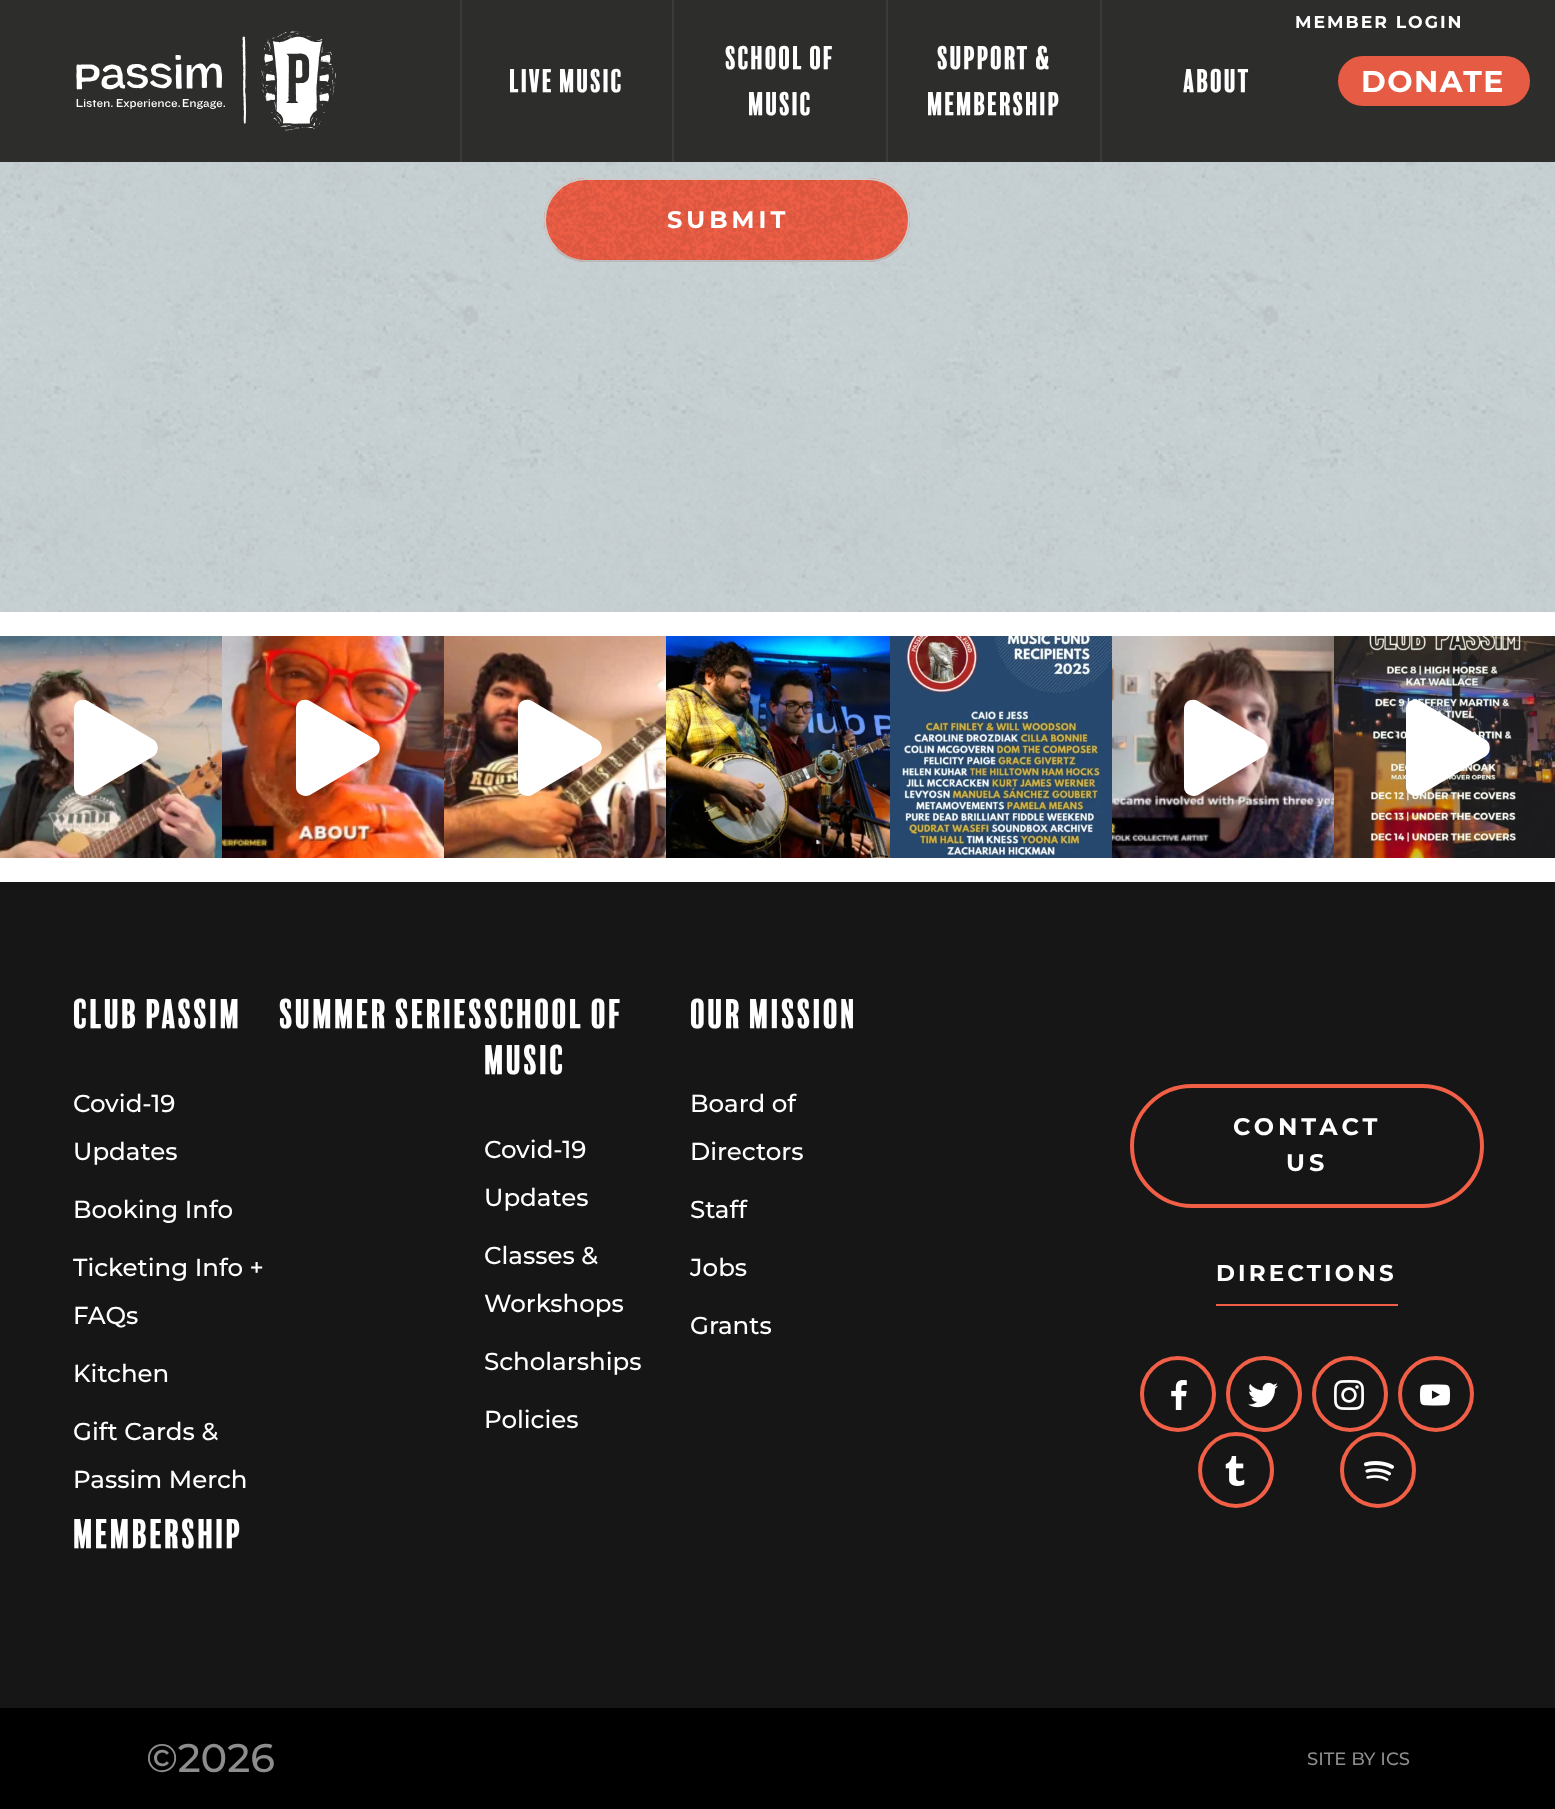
<svg xmlns="http://www.w3.org/2000/svg" width="1555" height="1809">
	<rect width="100%" height="100%" fill="#FFFFFF" />
	<rect x="0" y="0" width="1555" height="162" fill="#2D2D2C" />
	<image x="76" y="31" width="260" height="100" href="assets/img1.png" />
	<text x="1295" y="28" font-family="Montserrat" font-size="17.25" font-weight="700" letter-spacing="2" fill="#FFFFFF">MEMBER LOGIN</text>
	<rect x="672" y="0" width="2" height="162" fill="#3B3B3B" />
	<rect x="460" y="0" width="2" height="162" fill="#3B3B3B" />
	<text x="509" y="92" font-family="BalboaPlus" font-size="30" fill="#FFFFFF">Live Music</text>
	<rect x="886" y="0" width="2" height="162" fill="#3B3B3B" />
	<g font-family="BalboaPlus" font-size="30" fill="#FFFFFF">
		<text x="725" y="69">School of</text>
		<text x="748" y="115">Music</text>
	</g>
	<rect x="1100" y="0" width="2" height="162" fill="#3B3B3B" />
	<g font-family="BalboaPlus" font-size="30" fill="#FFFFFF">
		<text x="937" y="69">Support &amp;</text>
		<text x="927" y="115">Membership</text>
		<text x="1183" y="92">About</text>
	</g>
	<rect x="1339" y="57" width="190" height="48" rx="24" fill="#E65B43" stroke="#E65B43" stroke-width="2" />
	<text x="1361" y="92" font-family="Montserrat" font-size="30" font-weight="700" letter-spacing="1.5" fill="#FFFFFF">DONATE</text>
	<image x="0" y="162" width="1555" height="450" href="assets/img2.png" />
	<rect x="544" y="178" width="366" height="84" rx="42" fill="#F05F46" />
	<image x="544" y="178" width="366" height="84" href="assets/img3.png" />
	<path d="M897 249C889.5 256.5 879 261 868 261H586C575 261 564.5 256.5 557 249" fill="none" stroke="#BBBBBB" stroke-width="2" />
	<path d="M557 249C549.5 241.5 545 231 545 220C545 209 549.5 198.5 557 191C564.5 183.5 575 179 586 179H868C879 179 889.5 183.5 897 191C904.5 198.5 909 209 909 220C909 231 904.5 241.5 897 249" fill="none" stroke="#CCCCCC" stroke-width="2" />
	<text x="667" y="228" font-family="Montserrat" font-size="24" font-weight="700" letter-spacing="4" fill="#FFFFFF">SUBMIT</text>
	<image x="0" y="636" width="222" height="222" href="assets/img4.png" />
	<path d="M154 740L88 701C82 698 74 701 74 709V787C74 794 82 798 88 795L154 756C159 752 159 744 154 740Z" fill="#FFFFFF" />
	<image x="222" y="636" width="222" height="222" href="assets/img5.png" />
	<path d="M376 740L310 701C304 698 296 701 296 709V787C296 794 304 798 310 795L376 756C381 752 381 744 376 740Z" fill="#FFFFFF" />
	<image x="444" y="636" width="222" height="222" href="assets/img6.png" />
	<path d="M598 740L532 701C526 698 518 701 518 709V787C518 794 526 798 532 795L598 756C603 752 603 744 598 740Z" fill="#FFFFFF" />
	<image x="666" y="636" width="224" height="222" href="assets/img7.png" />
	<image x="890" y="636" width="222" height="222" href="assets/img8.png" />
	<image x="1112" y="636" width="222" height="222" href="assets/img9.png" />
	<path d="M1264 740L1198 701C1192 698 1184 701 1184 709V787C1184 794 1192 798 1198 795L1264 756C1269 752 1269 744 1264 740Z" fill="#FFFFFF" />
	<image x="1334" y="636" width="221" height="222" href="assets/img10.png" />
	<path d="M1486 740L1420 701C1414 698 1406 701 1406 709V787C1406 794 1414 798 1420 795L1486 756C1491 752 1491 744 1486 740Z" fill="#FFFFFF" />
	<rect x="0" y="882" width="1555" height="826" fill="#161616" />
	<text x="73" y="1028" font-family="BalboaPlus" font-size="38" fill="#FFFFFF">CLUB PASSIM</text>
	<g font-family="Montserrat" font-size="24.5" font-weight="500" fill="#FFFFFF">
		<text x="73" y="1112">Covid-19</text>
		<text x="73" y="1160">Updates</text>
		<text x="73" y="1218">Booking Info</text>
		<text x="73" y="1276">Ticketing Info +</text>
		<text x="73" y="1324">FAQs</text>
		<text x="73" y="1382">Kitchen</text>
		<text x="73" y="1440">Gift Cards &amp;</text>
		<text x="73" y="1488">Passim Merch</text>
	</g>
	<g font-family="BalboaPlus" font-size="38" fill="#FFFFFF">
		<text x="279" y="1028">SUMMER SERIES</text>
		<text x="484" y="1028">SCHOOL OF</text>
		<text x="484" y="1074">MUSIC</text>
	</g>
	<g font-family="Montserrat" font-size="24.5" font-weight="500" fill="#FFFFFF">
		<text x="484" y="1158">Covid-19</text>
		<text x="484" y="1206">Updates</text>
		<text x="484" y="1264">Classes &amp;</text>
		<text x="484" y="1312">Workshops</text>
		<text x="484" y="1370">Scholarships</text>
		<text x="484" y="1428">Policies</text>
	</g>
	<text x="690" y="1028" font-family="BalboaPlus" font-size="38" fill="#FFFFFF">OUR MISSION</text>
	<g font-family="Montserrat" font-size="24.5" font-weight="500" fill="#FFFFFF">
		<text x="690" y="1112">Board of</text>
		<text x="690" y="1160">Directors</text>
		<text x="690" y="1218">Staff</text>
		<text x="690" y="1276">Jobs</text>
		<text x="690" y="1334">Grants</text>
	</g>
	<text x="73" y="1548" font-family="BalboaPlus" font-size="38" fill="#FFFFFF">MEMBERSHIP</text>
	<rect x="1132" y="1086" width="350" height="120" rx="60" fill="none" stroke="#F05F46" stroke-width="4" />
	<g font-family="Montserrat" font-size="24" font-weight="700" letter-spacing="4" fill="#FFFFFF">
		<text x="1233" y="1135">CONTACT</text>
		<text x="1286" y="1171">US</text>
	</g>
	<text x="1216" y="1281" font-family="Montserrat" font-size="23" font-weight="700" letter-spacing="3.1" fill="#FFFFFF">DIRECTIONS</text>
	<rect x="1216" y="1304" width="182" height="2" fill="#F05F46" />
	<circle cx="1178" cy="1394" r="36" fill="none" stroke="#F05F46" stroke-width="4" />
	<image x="1171" y="1380" width="16" height="30" href="assets/img11.png" />
	<circle cx="1264" cy="1394" r="36" fill="none" stroke="#F05F46" stroke-width="4" />
	<image x="1248" y="1382" width="30" height="26" href="assets/img12.png" />
	<circle cx="1350" cy="1394" r="36" fill="none" stroke="#F05F46" stroke-width="4" />
	<image x="1334" y="1380" width="30" height="30" href="assets/img13.png" />
	<circle cx="1436" cy="1394" r="36" fill="none" stroke="#F05F46" stroke-width="4" />
	<image x="1420" y="1384" width="30" height="22" href="assets/img14.png" />
	<circle cx="1236" cy="1470" r="36" fill="none" stroke="#F05F46" stroke-width="4" />
	<image x="1225" y="1456" width="20" height="30" href="assets/img15.png" />
	<circle cx="1378" cy="1470" r="36" fill="none" stroke="#F05F46" stroke-width="4" />
	<image x="1364" y="1461" width="30" height="20" href="assets/img16.png" />
	<rect x="0" y="1708" width="1555" height="101" fill="#000000" />
	<text x="146" y="1772" font-family="Montserrat" font-size="40" font-weight="500" fill="#8D8D8D">©2026</text>
	<text x="1307" y="1765" font-family="Montserrat" font-size="18" font-weight="500" fill="#8D8D8D">SITE BY ICS</text>
</svg>
